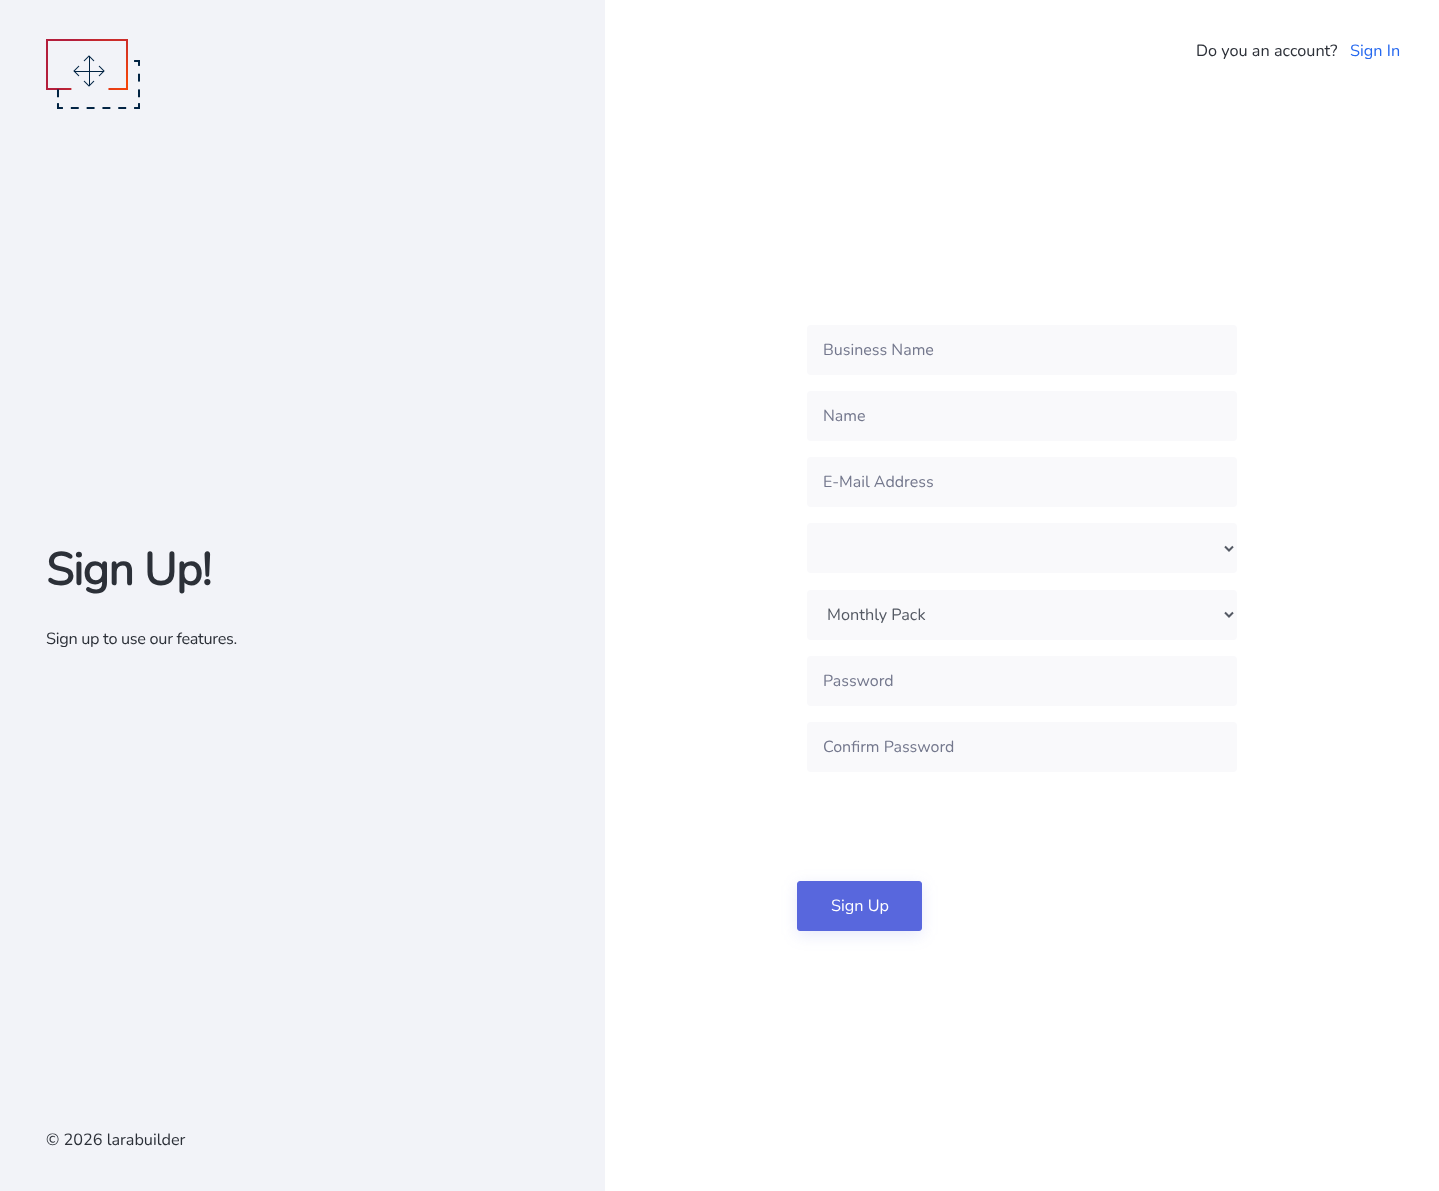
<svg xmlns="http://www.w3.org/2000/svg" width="1439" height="1191">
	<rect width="100%" height="100%" fill="#F2F3F8" />
	<image x="46" y="39" width="94" height="70" href="assets/img1.png" />
	<text x="46" y="585" font-family="Nunito" font-size="45.5" font-weight="700" letter-spacing="-1" fill="#2C3038">Sign Up!</text>
	<text x="46" y="644" font-family="Nunito" font-size="16.25" font-weight="200" letter-spacing="-0.3" fill="#2C3038">Sign up to use our features.</text>
	<text x="46" y="1145" font-family="Nunito" font-size="16.25" font-weight="200" fill="#2C3038">© 2026 larabuilder</text>
	<rect x="605" y="0" width="834" height="1191" fill="#FFFFFF" />
	<text x="1196" y="56" font-family="Nunito" font-size="16.25" font-weight="200" fill="#2C3038">Do you an account?</text>
	<text x="1350" y="56" font-family="Nunito" font-size="16.25" font-weight="200" fill="#2568EF">Sign In</text>
	<rect x="807" y="325" width="430" height="50" rx="4" fill="#F9F9FB" />
	<text x="823" y="355" font-family="Nunito" font-size="16" font-weight="200" fill="#74788D">Business Name</text>
	<rect x="807" y="391" width="430" height="50" rx="4" fill="#F9F9FB" />
	<text x="823" y="421" font-family="Nunito" font-size="16" font-weight="200" fill="#74788D">Name</text>
	<rect x="807" y="457" width="430" height="50" rx="4" fill="#F9F9FB" />
	<text x="823" y="487" font-family="Nunito" font-size="16" font-weight="200" fill="#74788D">E-Mail Address</text>
	<rect x="807" y="523" width="430" height="50" rx="4" fill="#F9F9FB" />
	<path d="M1225 546.5L1229 550.5L1233 546.5" fill="none" stroke="#555A64" stroke-width="2" />
	<rect x="807" y="590" width="430" height="50" rx="4" fill="#F9F9FB" />
	<path d="M1225 612.5L1229 616.5L1233 612.5" fill="none" stroke="#555A64" stroke-width="2" />
	<text x="827" y="620" font-family="Nunito" font-size="16.25" font-weight="200" fill="#555A64">Monthly Pack</text>
	<rect x="807" y="656" width="430" height="50" rx="4" fill="#F9F9FB" />
	<text x="823" y="686" font-family="Nunito" font-size="16" font-weight="200" fill="#74788D">Password</text>
	<rect x="807" y="722" width="430" height="50" rx="4" fill="#F9F9FB" />
	<text x="823" y="752" font-family="Nunito" font-size="16" font-weight="200" fill="#74788D">Confirm Password</text>
	<rect x="797" y="885" width="125" height="50" rx="3" fill="#5867DD" fill-opacity="0.15" filter="blur(8px)" />
	<rect x="797.5" y="881.5" width="124" height="49" rx="2.5" fill="#5867DD" stroke="#5867DD" />
	<text x="831" y="911" font-family="Nunito" font-size="16.25" font-weight="200" fill="#FFFFFF">Sign Up</text>
</svg>
